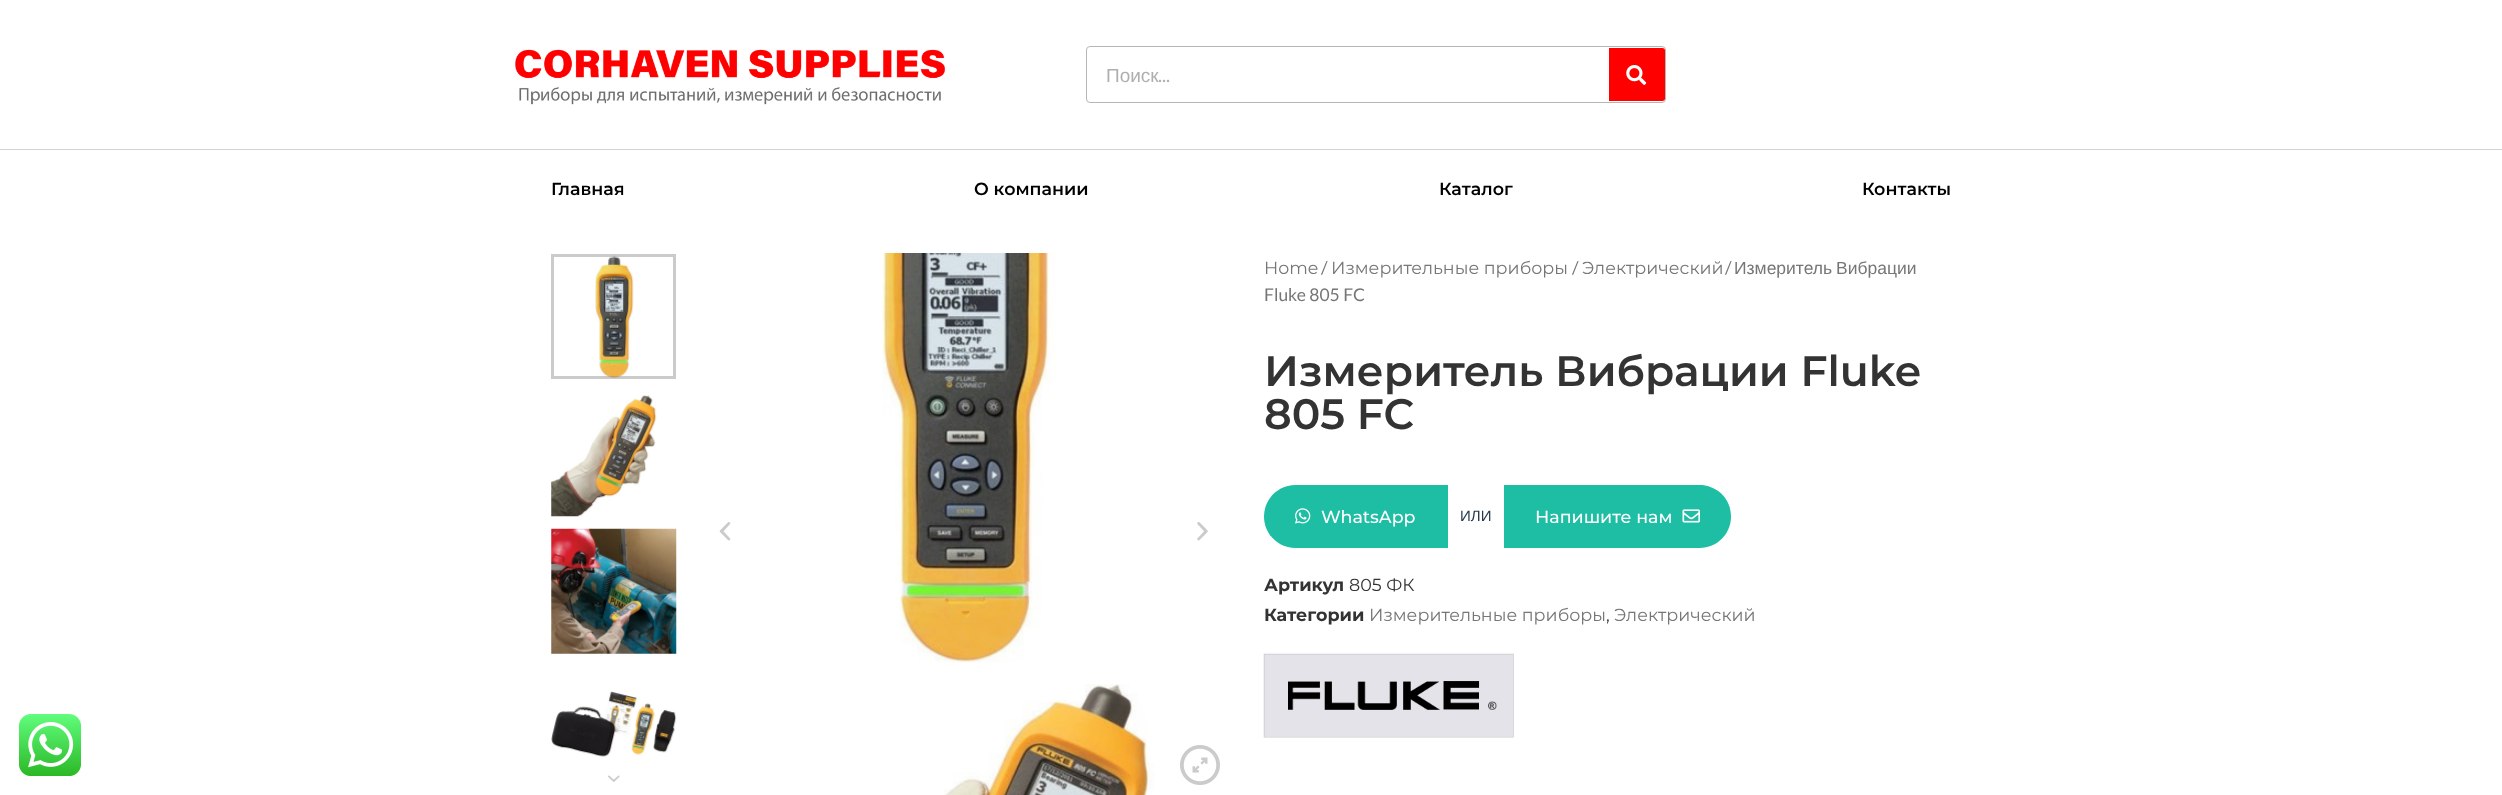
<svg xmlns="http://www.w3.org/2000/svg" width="2502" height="795">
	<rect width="100%" height="100%" fill="#FFFFFF" />
	<image x="515" y="49" width="430" height="56" href="assets/img1.png" />
	<rect x="1086.5" y="46.5" width="579" height="56" rx="3.5" fill="none" stroke="#B6B6B6" />
	<text x="1106" y="82" font-family="Liberation Sans" font-size="19" fill="#AFAFAF">Поиск</text>
	<text x="1158" y="82" font-family="Lato" font-size="19" fill="#AFAFAF">...</text>
	<path d="M1609 48H1662.5C1664 48 1665 49 1665 50.5V98.5C1665 100 1664 101 1662.5 101H1609Z" fill="#FF0000" />
	<image x="1626" y="65" width="21" height="20" href="assets/img2.png" />
	<rect x="0" y="149" width="2502" height="1" fill="#D3D3D3" />
	<g font-family="Montserrat" font-size="17.5" font-weight="600" fill="#000000">
		<text x="551" y="195">Главная</text>
		<text x="974" y="195">О компании</text>
		<text x="1439" y="195">Каталог</text>
		<text x="1862" y="195">Контакты</text>
	</g>
	<image x="595" y="255" width="39" height="123" href="assets/img3.png" />
	<rect x="552.5" y="255.5" width="122" height="122" fill="none" stroke="#7C7C7C" stroke-opacity="0.4" stroke-width="3" />
	<image x="551" y="395" width="106" height="122" href="assets/img4.png" />
	<image x="551" y="528" width="126" height="126" href="assets/img5.png" />
	<image x="551" y="691" width="126" height="66" href="assets/img6.png" />
	<image x="608" y="775" width="12" height="7" href="assets/img7.png" />
	<image x="719" y="522" width="12" height="19" href="assets/img8.png" />
	<image x="882" y="253" width="174" height="410" href="assets/img9.png" />
	<image x="944" y="684" width="211" height="111" href="assets/img10.png" />
	<image x="1197" y="522" width="11" height="19" href="assets/img11.png" />
	<image x="1180" y="745" width="40" height="40" href="assets/img12.png" />
	<text x="1264" y="274" font-family="Montserrat" font-size="17.5" fill="#767676">Home</text>
	<text x="1321" y="274" font-family="Lato" font-size="17.5" fill="#767676">/</text>
	<text x="1331" y="274" font-family="Montserrat" font-size="17.5" fill="#767676">Измерительные приборы</text>
	<text x="1572" y="274" font-family="Lato" font-size="17.5" fill="#767676">/</text>
	<text x="1582" y="274" font-family="Montserrat" font-size="17.5" fill="#767676">Электрический</text>
	<text x="1725" y="274" font-family="Lato" font-size="17.5" fill="#767676">/</text>
	<text x="1734" y="274" word-spacing="-1" font-family="Liberation Sans" font-size="17.5" fill="#767676">Измеритель Вибрации</text>
	<text x="1264" y="301" font-family="Lato" font-size="17.5" fill="#767676">Fluke 805 FC</text>
	<g font-family="Montserrat" font-size="42.5" font-weight="600" fill="#333333">
		<text x="1264" y="386">Измеритель Вибрации Fluke</text>
		<text x="1264" y="429">805 FC</text>
	</g>
	<path d="M1295.5 485H1448V548H1295.5C1278 548 1264 534 1264 516.5C1264 499 1278 485 1295.5 485Z" fill="#1EBEA5" />
	<image x="1295" y="508" width="16" height="16" href="assets/img13.png" />
	<text x="1321" y="523" font-family="Montserrat" font-size="17.5" font-weight="500" fill="#FFFFFF">WhatsApp</text>
	<text x="1460" y="521" font-family="Liberation Sans" font-size="15" fill="#27374C">ИЛИ</text>
	<path d="M1504 485H1699.5C1717 485 1731 499 1731 516.5C1731 534 1717 548 1699.5 548H1504Z" fill="#1EBEA5" />
	<text x="1535" y="523" font-family="Montserrat" font-size="17.5" font-weight="500" fill="#FFFFFF">Напишите нам</text>
	<image x="1682" y="509" width="18" height="14" href="assets/img14.png" />
	<text x="1264" y="591" font-family="Montserrat" font-size="17.5" font-weight="700" fill="#333333">Артикул</text>
	<text x="1349" y="591" font-family="Montserrat" font-size="17.5" fill="#333333">805 ФК</text>
	<text x="1264" y="621" font-family="Montserrat" font-size="17.5" font-weight="700" fill="#333333">Категории</text>
	<text x="1369" y="621" font-family="Montserrat" font-size="17.5" fill="#767676">Измерительные приборы</text>
	<text x="1606" y="621" font-family="Montserrat" font-size="17.5" fill="#333333">,</text>
	<text x="1614" y="621" font-family="Montserrat" font-size="17.5" fill="#767676">Электрический</text>
	<image x="1263" y="653" width="251" height="85" href="assets/img15.png" />
	<image x="19" y="714" width="62" height="62" href="assets/img16.png" />
</svg>
